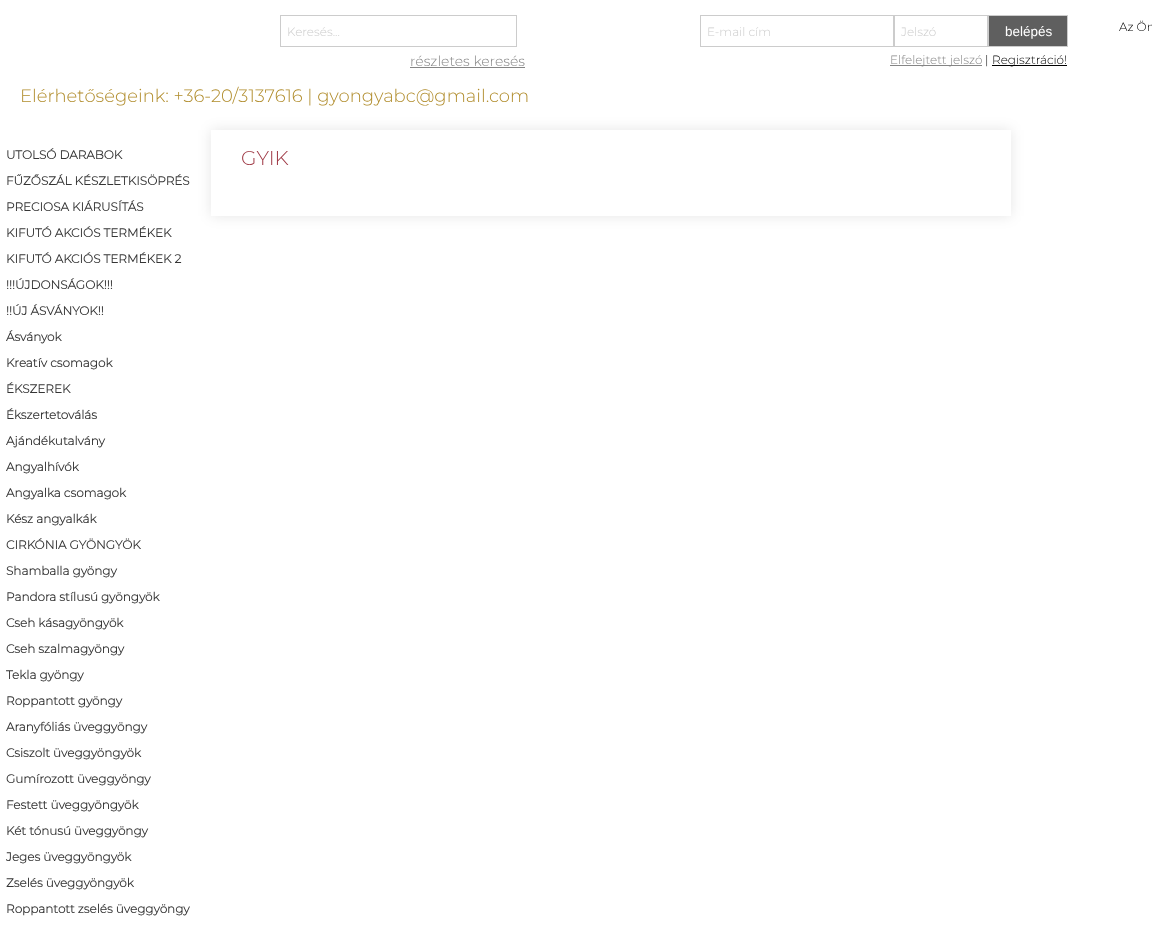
<svg xmlns="http://www.w3.org/2000/svg" width="1152" height="934">
	<defs>
		<clipPath id="clip1"><path d="M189 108H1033V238H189ZM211 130H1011V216H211Z" clip-rule="evenodd" /></clipPath>
	</defs>
	<rect width="100%" height="100%" fill="#FFFFFF" />
	<rect x="280.5" y="15.5" width="236" height="31" fill="none" stroke="#CCCCCC" />
	<text x="287" y="36" font-family="Montserrat" font-size="12" font-weight="100" fill="#CCCCCC">Keresés...</text>
	<rect x="700.5" y="15.5" width="193" height="31" fill="none" stroke="#CCCCCC" />
	<text x="707" y="36" font-family="Montserrat" font-size="12" font-weight="100" fill="#CCCCCC">E-mail cím</text>
	<rect x="894.5" y="15.5" width="93" height="31" fill="none" stroke="#CCCCCC" />
	<text x="901" y="36" font-family="Montserrat" font-size="12" font-weight="100" fill="#CCCCCC">Jelszó</text>
	<rect x="988.5" y="15.5" width="79" height="31" fill="#5F5F5F" stroke="#CCCCCC" />
	<text x="1005" y="36" font-family="Liberation Sans" font-size="13.5" fill="#FFFFFF">belépés</text>
	<rect x="890" y="65" width="92" height="1" fill="#858585" />
	<text x="890" y="64" font-family="Montserrat" font-size="12" font-weight="100" fill="#858585">Elfelejtett jelszó</text>
	<text x="985" y="64" font-family="Montserrat" font-size="12" font-weight="100" fill="#000000">|</text>
	<rect x="992" y="65" width="75" height="1" fill="#000000" />
	<g font-family="Montserrat" font-size="12" font-weight="100" fill="#000000">
		<text x="992" y="64">Regisztráció!</text>
		<text x="1119" y="31">Az Ön</text>
	</g>
	<text x="410" y="66" font-family="Montserrat" font-size="14" font-weight="100" fill="#858585">részletes keresés</text>
	<rect x="410" y="67" width="115" height="1" fill="#858585" />
	<text x="20" y="102" font-family="Montserrat" font-size="18" font-weight="100" fill="#B18D2D">Elérhetőségeink: +36-20/3137616 | gyongyabc@gmail.com</text>
	<g font-family="Montserrat" font-size="12" font-weight="700" fill="#353535">
		<text x="6" y="159">UTOLSÓ DARABOK</text>
		<text x="6" y="185">FŰZŐSZÁL KÉSZLETKISÖPRÉS</text>
		<text x="6" y="211">PRECIOSA KIÁRUSÍTÁS</text>
		<text x="6" y="237">KIFUTÓ AKCIÓS TERMÉKEK</text>
		<text x="6" y="263">KIFUTÓ AKCIÓS TERMÉKEK 2</text>
		<text x="6" y="289">!!!ÚJDONSÁGOK!!!</text>
		<text x="6" y="315">!!ÚJ ÁSVÁNYOK!!</text>
		<text x="6" y="341">Ásványok</text>
		<text x="6" y="367">Kreatív csomagok</text>
		<text x="6" y="393">ÉKSZEREK</text>
		<text x="6" y="419">Ékszertetoválás</text>
		<text x="6" y="445">Ajándékutalvány</text>
		<text x="6" y="471">Angyalhívók</text>
		<text x="6" y="497">Angyalka csomagok</text>
		<text x="6" y="523">Kész angyalkák</text>
		<text x="6" y="549">CIRKÓNIA GYÖNGYÖK</text>
		<text x="6" y="575">Shamballa gyöngy</text>
		<text x="6" y="601">Pandora stílusú gyöngyök</text>
		<text x="6" y="627">Cseh kásagyöngyök</text>
		<text x="6" y="653">Cseh szalmagyöngy</text>
		<text x="6" y="679">Tekla gyöngy</text>
		<text x="6" y="705">Roppantott gyöngy</text>
		<text x="6" y="731">Aranyfóliás üveggyöngy</text>
		<text x="6" y="757">Csiszolt üveggyöngyök</text>
		<text x="6" y="783">Gumírozott üveggyöngy</text>
		<text x="6" y="809">Festett üveggyöngyök</text>
		<text x="6" y="835">Két tónusú üveggyöngy</text>
		<text x="6" y="861">Jeges üveggyöngyök</text>
		<text x="6" y="887">Zselés üveggyöngyök</text>
		<text x="6" y="913">Roppantott zselés üveggyöngy</text>
	</g>
	<g clip-path="url(#clip1)">
		<rect x="211" y="130" width="800" height="86" fill="#000000" fill-opacity="0.1" filter="blur(7px)" />
	</g>
	<text x="241" y="165" font-family="Montserrat" font-size="20" font-weight="100" fill="#9F3945">GYIK</text>
</svg>
